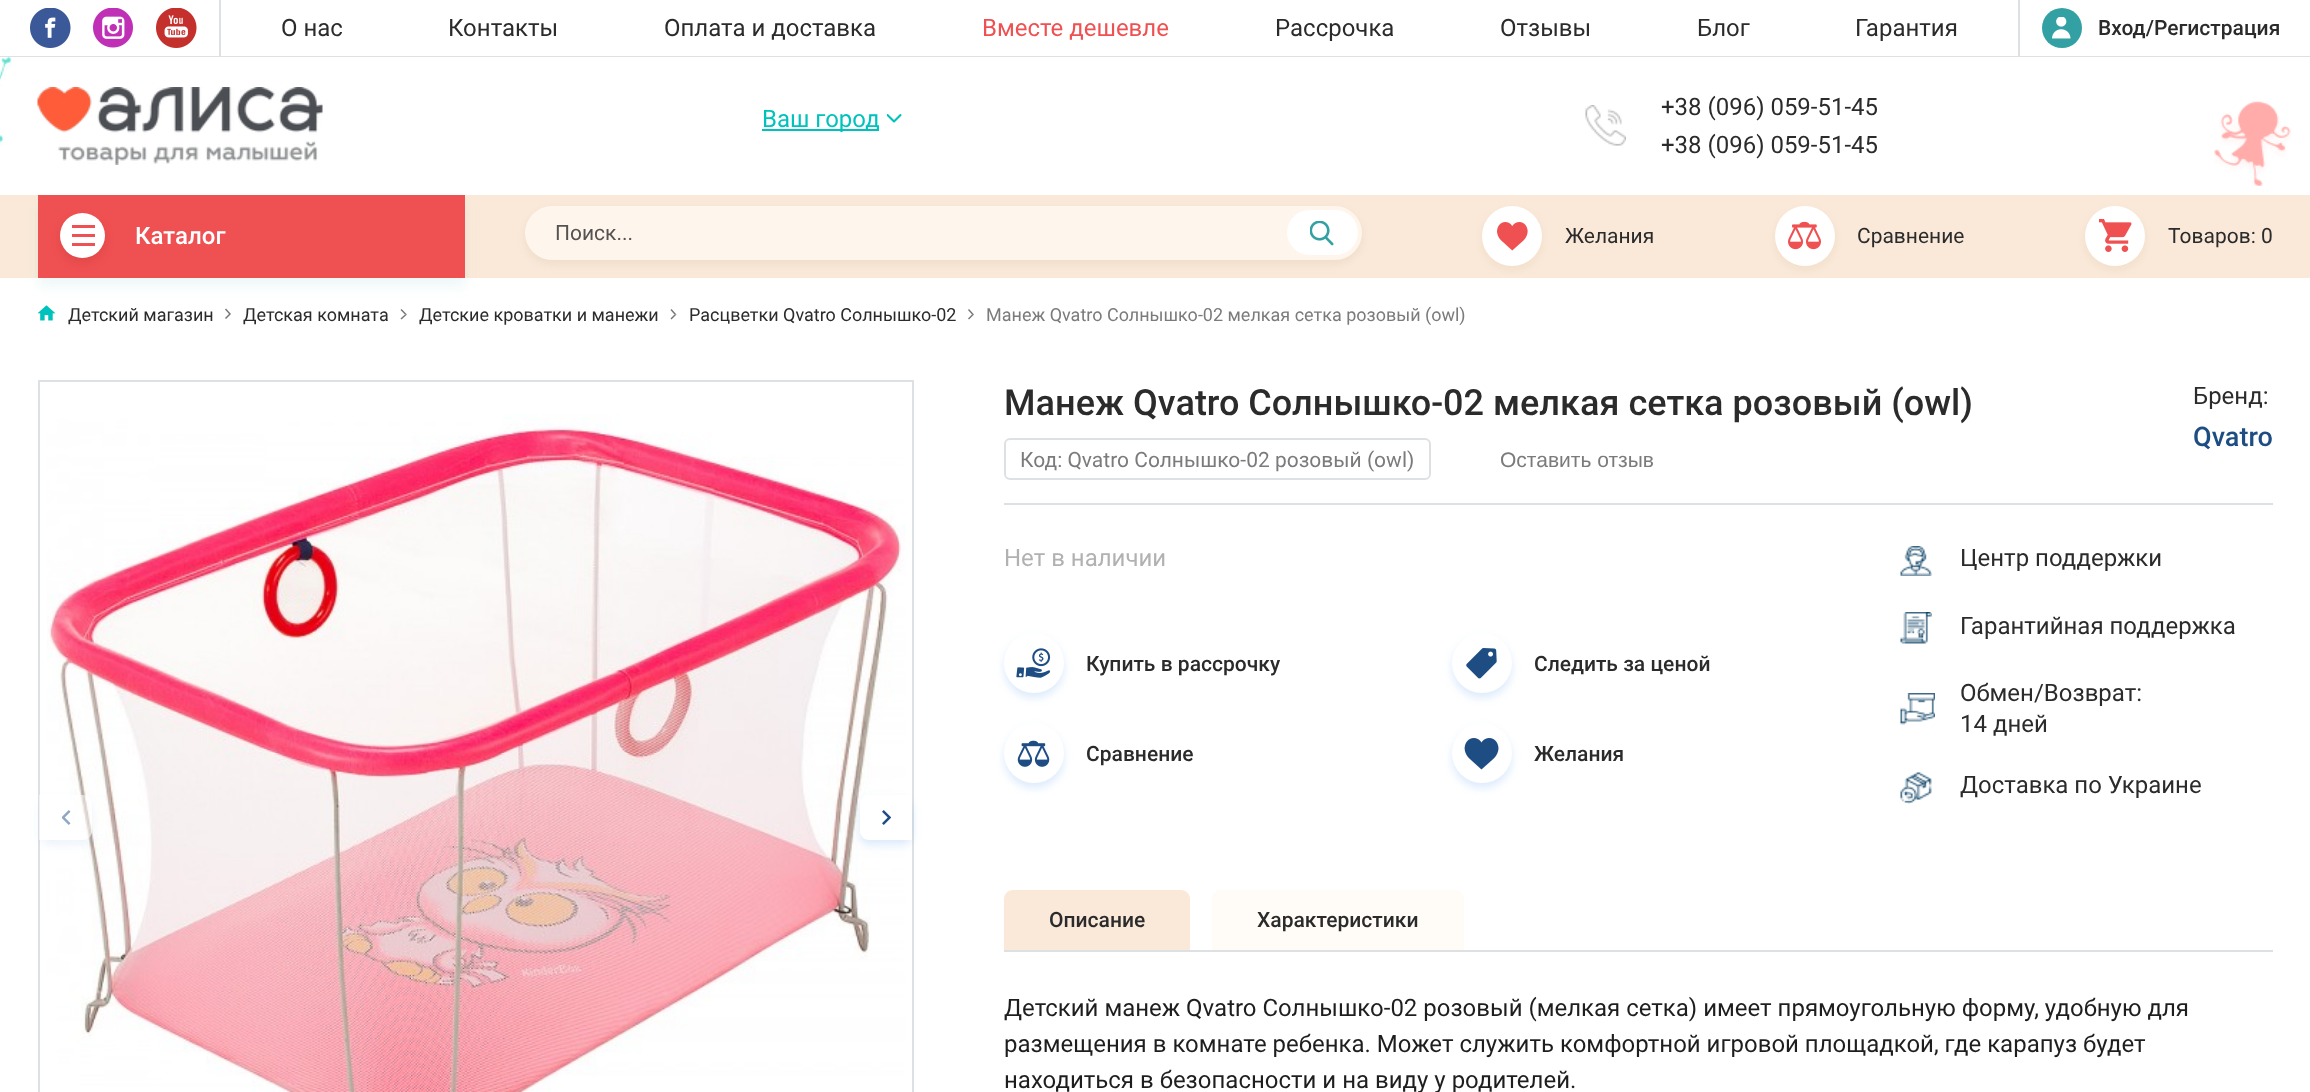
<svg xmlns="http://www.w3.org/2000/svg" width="2310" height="1092">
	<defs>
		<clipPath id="clip1"><path d="M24 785H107V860H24ZM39 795H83C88 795 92 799 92 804V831C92 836 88 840 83 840H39Z" clip-rule="evenodd" /></clipPath>
	</defs>
	<rect width="100%" height="100%" fill="#FFFFFF" />
	<rect x="0" y="56" width="2310" height="1" fill="#DEE1E3" />
	<image x="30" y="8" width="41" height="40" href="assets/img1.png" />
	<image x="93" y="8" width="40" height="40" href="assets/img2.png" />
	<image x="156" y="8" width="41" height="40" href="assets/img3.png" />
	<rect x="219" y="0" width="2" height="56" fill="#DEE1E3" />
	<g font-family="Roboto" font-size="24" fill="#2B2B2B">
		<text x="281" y="36">О нас</text>
		<text x="448" y="36">Контакты</text>
		<text x="664" y="36">Оплата и доставка</text>
	</g>
	<text x="982" y="36" font-family="Roboto" font-size="24" fill="#EF5051">Вместе дешевле</text>
	<g font-family="Roboto" font-size="24" fill="#2B2B2B">
		<text x="1275" y="36">Рассрочка</text>
		<text x="1500" y="36">Отзывы</text>
		<text x="1697" y="36">Блог</text>
		<text x="1855" y="36">Гарантия</text>
	</g>
	<rect x="2018" y="0" width="2" height="56" fill="#DEE1E3" />
	<circle cx="2062" cy="28" r="20" fill="#33A1A4" />
	<image x="2052" y="17" width="19" height="22" href="assets/img4.png" />
	<text x="2098" y="35" font-family="Roboto" font-size="21" font-weight="500" fill="#2B2B2B">Вход/Регистрация</text>
	<image x="0" y="57" width="12" height="89" href="assets/img5.png" />
	<image x="37" y="87" width="286" height="78" href="assets/img6.png" />
	<rect x="762" y="129" width="117" height="2" fill="#00C2BC" />
	<text x="762" y="127" font-family="Roboto" font-size="24" fill="#00C2BC">Ваш город</text>
	<image x="887" y="114" width="15" height="9" href="assets/img7.png" />
	<image x="1585" y="105" width="41" height="41" href="assets/img8.png" />
	<g font-family="Roboto" font-size="24" fill="#2B2B2B">
		<text x="1661" y="115">+38 (096) 059-51-45</text>
		<text x="1661" y="153">+38 (096) 059-51-45</text>
	</g>
	<image x="2214" y="101" width="77" height="85" href="assets/img9.png" />
	<rect x="0" y="195" width="2310" height="83" fill="#FAE9D9" />
	<rect x="38" y="204" width="427" height="83" fill="#33A1A4" fill-opacity="0.08" filter="blur(6px)" />
	<rect x="38" y="195" width="427" height="83" fill="#EF5051" />
	<rect x="60" y="218" width="45" height="45" rx="22.5" fill="#B83334" fill-opacity="0.24" filter="blur(4.5px)" />
	<circle cx="82.5" cy="235.5" r="22.5" fill="#FFFFFF" />
	<rect x="72" y="225" width="23" height="3" fill="#EF5051" />
	<rect x="72" y="234" width="23" height="3" fill="#EF5051" />
	<rect x="72" y="243" width="23" height="3" fill="#EF5051" />
	<text x="135" y="244" font-family="Roboto" font-size="24" font-weight="500" fill="#FFFFFF">Каталог</text>
	<rect x="525" y="210" width="837" height="54" rx="27" fill="#DEC5AE" fill-opacity="0.35" filter="blur(4.5px)" />
	<rect x="525" y="206" width="837" height="54" rx="27" fill="#FEF5EC" />
	<text x="555" y="240" font-family="Roboto" font-size="21" fill="#555352">Поиск...</text>
	<rect x="1287" y="210" width="71" height="45" rx="22.5" fill="#FFFFFF" />
	<image x="1310" y="221" width="24" height="25" href="assets/img10.png" />
	<rect x="1482" y="210" width="60" height="60" rx="30" fill="#E2C6AA" fill-opacity="0.32" filter="blur(4.5px)" />
	<circle cx="1512" cy="236" r="30" fill="#FFFFFF" />
	<image x="1497" y="222" width="31" height="29" href="assets/img11.png" />
	<text x="1565" y="243" font-family="Roboto" font-size="21" fill="#2B2B2B">Желания</text>
	<rect x="1775" y="210" width="60" height="60" rx="30" fill="#E2C6AA" fill-opacity="0.32" filter="blur(4.5px)" />
	<circle cx="1805" cy="236" r="30" fill="#FFFFFF" />
	<image x="1788" y="221" width="33" height="29" href="assets/img12.png" />
	<text x="1857" y="243" font-family="Roboto" font-size="21" fill="#2B2B2B">Сравнение</text>
	<rect x="2085" y="210" width="60" height="60" rx="30" fill="#E2C6AA" fill-opacity="0.32" filter="blur(4.5px)" />
	<circle cx="2115" cy="236" r="30" fill="#FFFFFF" />
	<image x="2099" y="219" width="33" height="33" href="assets/img13.png" />
	<text x="2168" y="243" font-family="Roboto" font-size="21" fill="#2B2B2B">Товаров: 0</text>
	<image x="38" y="305" width="18" height="16" href="assets/img14.png" />
	<text x="68" y="321" font-family="Roboto" font-size="18" fill="#2B2B2B">Детский магазин</text>
	<path d="M226 308.5L231 314H229L225 309.5ZM231 314L226 319L225 318L229 314Z" fill="#757575" />
	<text x="243" y="321" font-family="Roboto" font-size="18" fill="#2B2B2B">Детская комната</text>
	<path d="M401.5 309L407 314.5H405L400.5 310Z" fill="#757575" />
	<path d="M407 314.5L401.5 319.5L400.5 318.5L405 314.5Z" fill="#757575" />
	<text x="419" y="321" font-family="Roboto" font-size="18" fill="#2B2B2B">Детские кроватки и манежи</text>
	<path d="M671.5 309L676.5 314.5H674.5L670.5 310Z" fill="#757575" />
	<path d="M676.5 314.5L671.5 319.5L670.5 318.5L674.5 314.5Z" fill="#757575" />
	<text x="689" y="321" font-family="Roboto" font-size="18" fill="#2B2B2B">Расцветки Qvatro Солнышко-02</text>
	<path d="M969 309L974 314.5H972L968 310Z" fill="#757575" />
	<path d="M974 314.5L969 319.5L968 318.5L972 314.5Z" fill="#000000" fill-opacity="0.54" />
	<text x="986" y="321" font-family="Roboto" font-size="18" fill="#7B7B7B">Манеж Qvatro Солнышко-02 мелкая сетка розовый (owl)</text>
	<rect x="39" y="381" width="874" height="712" fill="none" stroke="#DEE1E3" stroke-width="2" />
	<image x="47" y="414" width="858" height="678" href="assets/img15.png" />
	<g clip-path="url(#clip1)">
		<rect x="39" y="800" width="53" height="45" rx="9" fill="#2680EB" fill-opacity="0.08" filter="blur(4.5px)" />
	</g>
	<path d="M39 795H83C88 795 92 799 92 804V831C92 836 88 840 83 840H39Z" fill="#FFFFFF" fill-opacity="0.5" />
	<image x="62" y="810" width="9" height="15" href="assets/img16.png" />
	<rect x="860" y="800" width="52" height="45" rx="9" fill="#2680EB" fill-opacity="0.16" filter="blur(4.5px)" />
	<path d="M869 795H912V840H869C864 840 860 836 860 831V804C860 799 864 795 869 795Z" fill="#FFFFFF" />
	<image x="882" y="810" width="9" height="15" href="assets/img17.png" />
	<rect x="1004" y="503" width="1269" height="2" fill="#DEE1E3" />
	<text x="1004" y="415" font-family="Roboto" font-size="36" font-weight="500" fill="#2B2B2B">Манеж Qvatro Солнышко-02 мелкая сетка розовый (owl)</text>
	<rect x="1005" y="439" width="425" height="40" rx="5" fill="none" stroke="#DEE1E3" stroke-width="2" />
	<text x="1020" y="467" font-family="Roboto" font-size="21" fill="#7B7B7B">Код: Qvatro Солнышко-02 розовый (owl)</text>
	<text x="1500" y="467" font-family="Liberation Sans" font-size="21" fill="#7B7B7B">Оставить отзыв</text>
	<text x="2193" y="404" font-family="Roboto" font-size="24" fill="#2B2B2B">Бренд:</text>
	<text x="2193" y="446" font-family="Roboto" font-size="27" font-weight="500" fill="#1E4D84">Qvatro</text>
	<text x="1004" y="566" font-family="Roboto" font-size="24" fill="#B1B1B1">Нет в наличии</text>
	<rect x="1004" y="638" width="60" height="60" rx="30" fill="#2680EB" fill-opacity="0.16" filter="blur(4.5px)" />
	<circle cx="1034" cy="663" r="30" fill="#FFFFFF" />
	<image x="1016" y="648" width="35" height="30" href="assets/img18.png" />
	<text x="1086" y="671" font-family="Roboto" font-size="21" font-weight="500" fill="#2B2B2B">Купить в рассрочку</text>
	<rect x="1452" y="638" width="60" height="60" rx="30" fill="#2680EB" fill-opacity="0.16" filter="blur(4.5px)" />
	<circle cx="1482" cy="663" r="30" fill="#FFFFFF" />
	<image x="1466" y="648" width="31" height="31" href="assets/img19.png" />
	<text x="1534" y="671" font-family="Roboto" font-size="21" font-weight="500" fill="#2B2B2B">Следить за ценой</text>
	<rect x="1004" y="728" width="60" height="60" rx="30" fill="#2680EB" fill-opacity="0.16" filter="blur(4.5px)" />
	<circle cx="1034" cy="753" r="30" fill="#FFFFFF" />
	<image x="1017" y="740" width="33" height="27" href="assets/img20.png" />
	<text x="1086" y="761" font-family="Roboto" font-size="21" font-weight="500" fill="#2B2B2B">Сравнение</text>
	<rect x="1452" y="728" width="60" height="60" rx="30" fill="#2680EB" fill-opacity="0.16" filter="blur(4.5px)" />
	<circle cx="1482" cy="753" r="30" fill="#FFFFFF" />
	<image x="1464" y="738" width="35" height="32" href="assets/img21.png" />
	<text x="1534" y="761" font-family="Roboto" font-size="21" font-weight="500" fill="#2B2B2B">Желания</text>
	<image x="1900" y="546" width="32" height="30" href="assets/img22.png" />
	<text x="1960" y="566" font-family="Roboto" font-size="24" fill="#2B2B2B">Центр поддержки</text>
	<image x="1900" y="612" width="32" height="32" href="assets/img23.png" />
	<text x="1960" y="634" font-family="Roboto" font-size="24" fill="#2B2B2B">Гарантийная поддержка</text>
	<image x="1900" y="693" width="35" height="32" href="assets/img24.png" />
	<g font-family="Roboto" font-size="24" fill="#2B2B2B">
		<text x="1960" y="701">Обмен/Возврат:</text>
		<text x="1960" y="732">14 дней</text>
	</g>
	<image x="1900" y="772" width="32" height="32" href="assets/img25.png" />
	<text x="1960" y="793" font-family="Roboto" font-size="24" fill="#2B2B2B">Доставка по Украине</text>
	<rect x="1004" y="950" width="1269" height="2" fill="#DEE1E3" />
	<path d="M1013 890H1181C1186 890 1190 894 1190 899V950H1004V899C1004 894 1008 890 1013 890Z" fill="#FAE9D9" />
	<text x="1049" y="927" font-family="Roboto" font-size="21" font-weight="500" fill="#2B2B2B">Описание</text>
	<path d="M1221 890H1455C1460 890 1464 894 1464 899V950H1212V899C1212 894 1216 890 1221 890Z" fill="#FFFBF6" />
	<text x="1257" y="927" font-family="Roboto" font-size="21" font-weight="500" fill="#2B2B2B">Характеристики</text>
	<g font-family="Roboto" font-size="24" fill="#1E1E1E">
		<text x="1004" y="1016">Детский манеж Qvatro Солнышко-02 розовый (мелкая сетка) имеет прямоугольную форму, удобную для</text>
		<text x="1004" y="1052">размещения в комнате ребенка. Может служить комфортной игровой площадкой, где карапуз будет</text>
		<text x="1004" y="1088">находиться в безопасности и на виду у родителей.</text>
	</g>
</svg>
